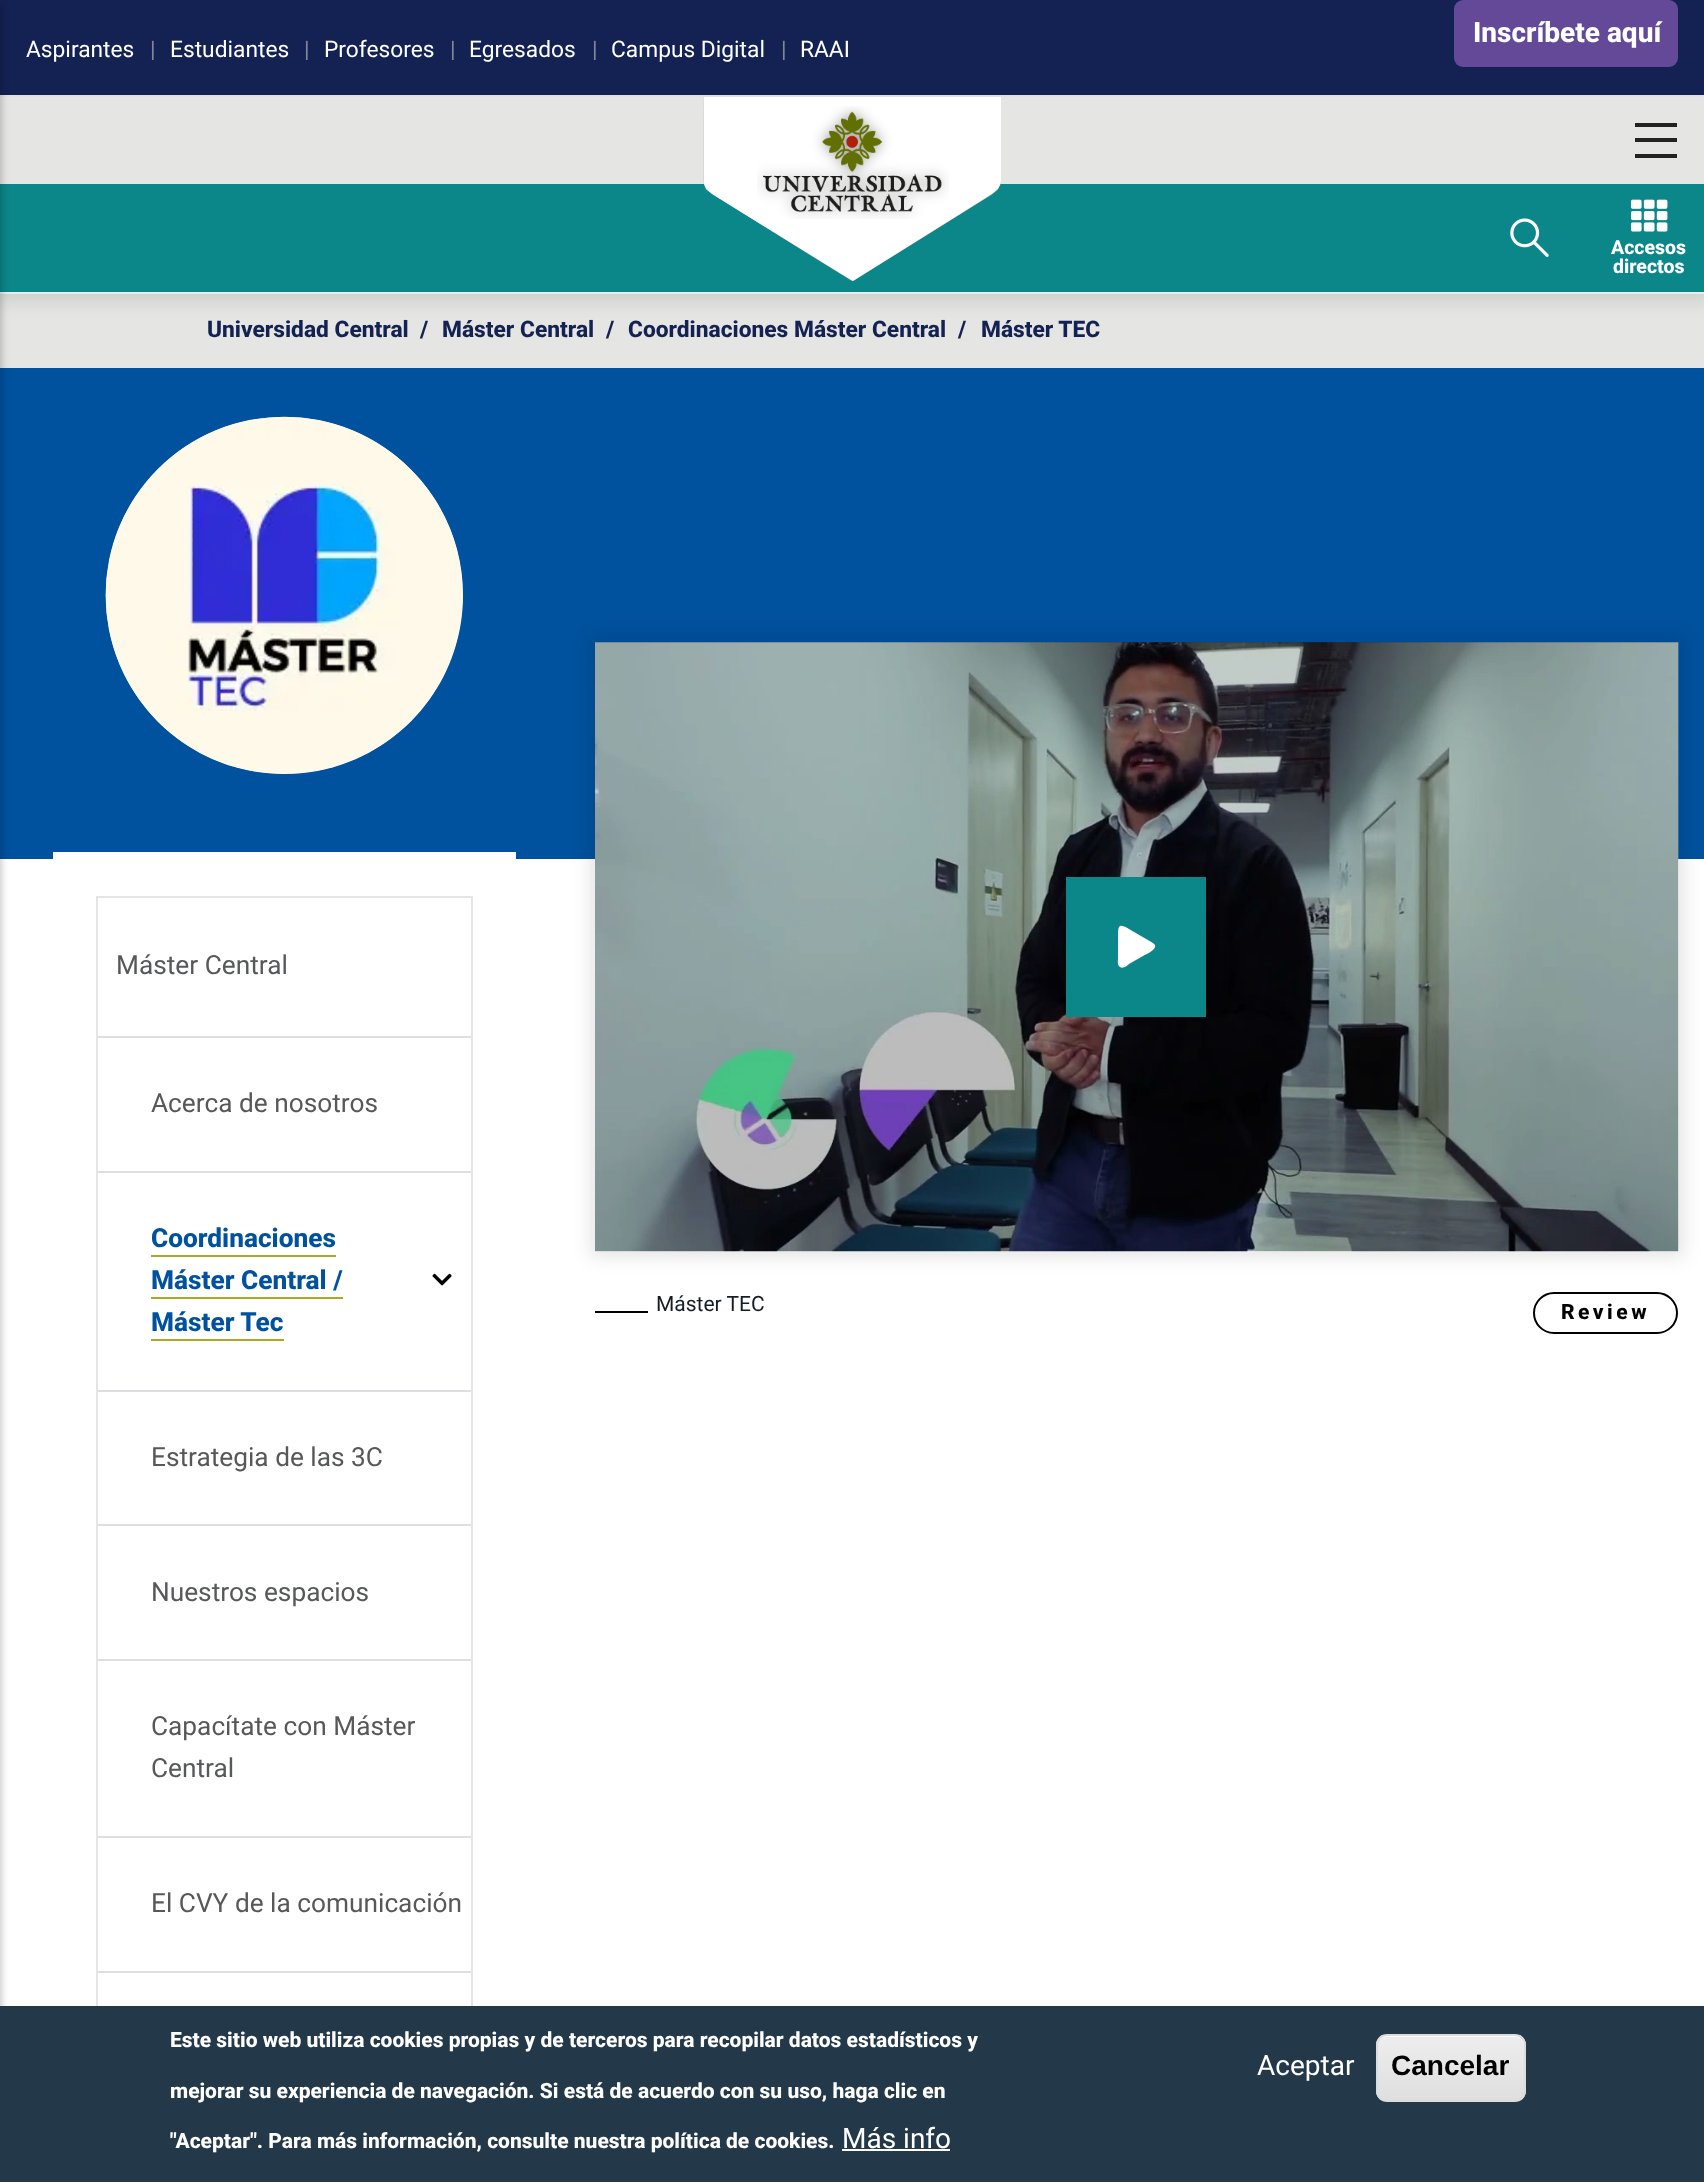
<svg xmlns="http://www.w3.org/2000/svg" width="1704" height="2182">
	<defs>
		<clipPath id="clip1"><path d="M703.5 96H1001V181L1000.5 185L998 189L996.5 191L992 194.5L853 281L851 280.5L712 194L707.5 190.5L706 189L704 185L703.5 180.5Z" /></clipPath>
		<clipPath id="clip2"><rect x="1376" y="2034" width="150" height="68" rx="11" /></clipPath>
		<linearGradient id="g1" gradientUnits="userSpaceOnUse" x1="1451" y1="2035" x2="1451" y2="2100"><stop offset="0.05" stop-color="#EDEDED" /><stop offset="1" stop-color="#DFDFDF" /></linearGradient>
	</defs>
	<rect width="100%" height="100%" fill="#FFFFFF" />
	<rect x="0" y="294" width="1704" height="74" fill="#E5E5E3" />
	<rect x="-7" y="-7" width="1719" height="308" fill="#000000" fill-opacity="0.1" filter="blur(9px)" />
	<rect x="0" y="292" width="1704" height="2" fill="#EBEBEB" />
	<rect x="0" y="97" width="1704" height="87" fill="#E5E5E3" />
	<rect x="0" y="184" width="1704" height="108" fill="#0B8689" />
	<g clip-path="url(#clip1)">
		<rect x="704" y="98" width="297" height="186" fill="#B5B5B5" filter="blur(17.5px)" />
	</g>
	<rect x="0" y="0" width="1704" height="95" fill="#142153" />
	<path d="M704 184V96H1001V181L1000 185L998 189L992 194L853 281L851 280L712 194L706 189Z" fill="#FFFFFF" />
	<rect x="0" y="95" width="1704" height="2" fill="#DEE2E6" />
	<rect x="1454" y="0" width="224" height="67" rx="9" fill="#634998" />
	<text x="1473" y="42" font-family="Roboto" font-size="28" font-weight="800" fill="#FFFFFF">Inscríbete aquí</text>
	<text x="26" y="57" font-family="Roboto" font-size="22.75" fill="#FFFFFF">Aspirantes</text>
	<text x="150" y="57" font-family="Roboto" font-size="22.75" fill="#828892">|</text>
	<text x="170" y="57" font-family="Roboto" font-size="22.75" fill="#FFFFFF">Estudiantes</text>
	<text x="304" y="57" font-family="Roboto" font-size="22.75" fill="#828892">|</text>
	<text x="324" y="57" font-family="Roboto" font-size="22.75" fill="#FFFFFF">Profesores</text>
	<text x="450" y="57" font-family="Roboto" font-size="22.75" fill="#828892">|</text>
	<text x="469" y="57" font-family="Roboto" font-size="22.75" fill="#FFFFFF">Egresados</text>
	<text x="592" y="57" font-family="Roboto" font-size="22.75" fill="#828892">|</text>
	<text x="611" y="57" font-family="Roboto" font-size="22.75" fill="#FFFFFF">Campus Digital</text>
	<text x="781" y="57" font-family="Roboto" font-size="22.75" fill="#828892">|</text>
	<text x="800" y="57" font-family="Roboto" font-size="22.75" fill="#FFFFFF">RAAI</text>
	<rect x="0" y="368" width="1704" height="491" fill="#00519E" />
	<rect x="-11" y="5" width="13" height="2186" fill="#000000" fill-opacity="0.2" filter="blur(3.5px)" />
	<rect x="1635" y="123" width="42" height="4" fill="#222222" />
	<rect x="1635" y="138" width="42" height="4" fill="#222222" />
	<rect x="1635" y="154" width="42" height="4" fill="#222222" />
	<image x="757" y="106" width="192" height="113" href="assets/img1.png" />
	<image x="1510" y="218" width="39" height="39" href="assets/img2.png" />
	<image x="1631" y="199" width="37" height="33" href="assets/img3.png" />
	<g font-family="Roboto" font-size="19.5" font-weight="800" fill="#FFFFFF">
		<text x="1611" y="254">Accesos</text>
		<text x="1613" y="273">directos</text>
	</g>
	<g font-family="Roboto" font-size="22.75" font-weight="800" fill="#142153">
		<text x="207" y="337">Universidad Central</text>
		<text x="420" y="337">/</text>
		<text x="442" y="337">Máster Central</text>
		<text x="606" y="337">/</text>
		<text x="628" y="337">Coordinaciones Máster Central</text>
		<text x="958" y="337">/</text>
		<text x="981" y="337">Máster TEC</text>
	</g>
	<path d="M284 417C185 417 106 497 106 595C106 694 185 774 284 774C383 774 463 694 463 595C463 497 383 417 284 417Z" fill="#FFFFFF" />
	<image x="105" y="416" width="358" height="358" href="assets/img4.png" />
	<rect x="53" y="852" width="463" height="7" fill="#FFFFFF" />
	<rect x="97" y="897" width="375" height="1253" fill="none" stroke="#E5E5E3" stroke-width="2" />
	<text x="116" y="974" font-family="Roboto" font-size="26.25" fill="#575859">Máster Central</text>
	<rect x="98" y="1036" width="373" height="2" fill="#DEDFE2" />
	<text x="151" y="1112" font-family="Roboto" font-size="26.25" fill="#575859">Acerca de nosotros</text>
	<rect x="98" y="1171" width="373" height="2" fill="#DEDFE2" />
	<text x="151" y="1247" font-family="Roboto" font-size="26.25" font-weight="800" fill="#00519E">Coordinaciones</text>
	<rect x="151" y="1255" width="185" height="2" fill="#AAAA26" />
	<text x="151" y="1289" font-family="Roboto" font-size="26.25" font-weight="800" fill="#00519E">Máster Central /</text>
	<rect x="151" y="1297" width="192" height="2" fill="#AAAA26" />
	<text x="151" y="1331" font-family="Roboto" font-size="26.25" font-weight="800" fill="#00519E">Máster Tec</text>
	<rect x="151" y="1339" width="133" height="2" fill="#AAAA26" />
	<image x="432" y="1273" width="20" height="13" href="assets/img5.png" />
	<rect x="98" y="1390" width="373" height="2" fill="#DEDFE2" />
	<text x="151" y="1466" font-family="Roboto" font-size="26.25" fill="#575859">Estrategia de las 3C</text>
	<rect x="98" y="1524" width="373" height="2" fill="#DEDFE2" />
	<text x="151" y="1601" font-family="Roboto" font-size="26.25" fill="#575859">Nuestros espacios</text>
	<rect x="98" y="1659" width="373" height="2" fill="#DEDFE2" />
	<g font-family="Roboto" font-size="26.25" fill="#575859">
		<text x="151" y="1735">Capacítate con Máster</text>
		<text x="151" y="1777">Central</text>
	</g>
	<rect x="98" y="1836" width="373" height="2" fill="#DEDFE2" />
	<text x="151" y="1912" font-family="Roboto" font-size="26.25" fill="#575859">El CVY de la comunicación</text>
	<rect x="98" y="1971" width="373" height="2" fill="#DEDFE2" />
	<rect x="590" y="637" width="1094" height="620" fill="#000000" fill-opacity="0.1" filter="blur(9px)" />
	<image x="595" y="642" width="1084" height="610" href="assets/img6.png" />
	<rect x="595" y="642" width="1083" height="609" fill="#000000" fill-opacity="0.2" />
	<rect x="1066" y="877" width="140" height="140" fill="#0B8689" />
	<path d="M1153 943C1161 948 1145 955 1143 956L1129 964C1127 966 1123 969 1120 967C1117 965 1118 961 1118 958V935C1118 924 1120 924 1129 929Z" fill="#FFFFFF" />
	<rect x="595" y="1311" width="53" height="2" fill="#000000" />
	<text x="656" y="1311" font-family="Roboto" font-size="21" fill="#161C26">Máster TEC</text>
	<rect x="1534" y="1293" width="143" height="40" rx="20" fill="none" stroke="#000000" stroke-width="2" />
	<text x="1561" y="1319" font-family="Roboto" font-size="21" font-weight="800" letter-spacing="3.5" fill="#000000">Review</text>
	<rect x="0" y="2006" width="1704" height="176" fill="#233849" />
	<g font-family="Roboto" font-size="21" font-weight="800" fill="#FFFFFF">
		<text x="170" y="2047">Este sitio web utiliza cookies propias y de terceros para recopilar datos estadísticos y</text>
		<text x="170" y="2098">mejorar su experiencia de navegación. Si está de acuerdo con su uso, haga clic en</text>
		<text x="170" y="2148">"Aceptar". Para más información, consulte nuestra política de cookies.</text>
	</g>
	<text x="842" y="2148" font-family="Roboto" font-size="28" fill="#FFFFFF">Más info</text>
	<rect x="842" y="2149" width="108" height="2" fill="#FFFFFF" />
	<text x="1257" y="2075" font-family="Roboto" font-size="28" fill="#FFFFFF">Aceptar</text>
	<g clip-path="url(#clip2)">
		<rect x="1376" y="2035" width="150" height="65" fill="url(#g1)" />
	</g>
	<path d="M1386 2037H1516C1520 2037 1524 2041 1524 2046V2044C1524 2039 1520 2035 1515 2035H1386C1381 2035 1377 2039 1377 2044V2046C1377 2041 1381 2037 1386 2037Z" fill="#FFFFFF" />
	<rect x="1377" y="2035" width="148" height="66" rx="10" fill="none" stroke="#DCDCDC" stroke-width="2" />
	<text x="1391" y="2075" font-family="Liberation Sans" font-size="28" font-weight="700" fill="#000000">Cancelar</text>
</svg>
